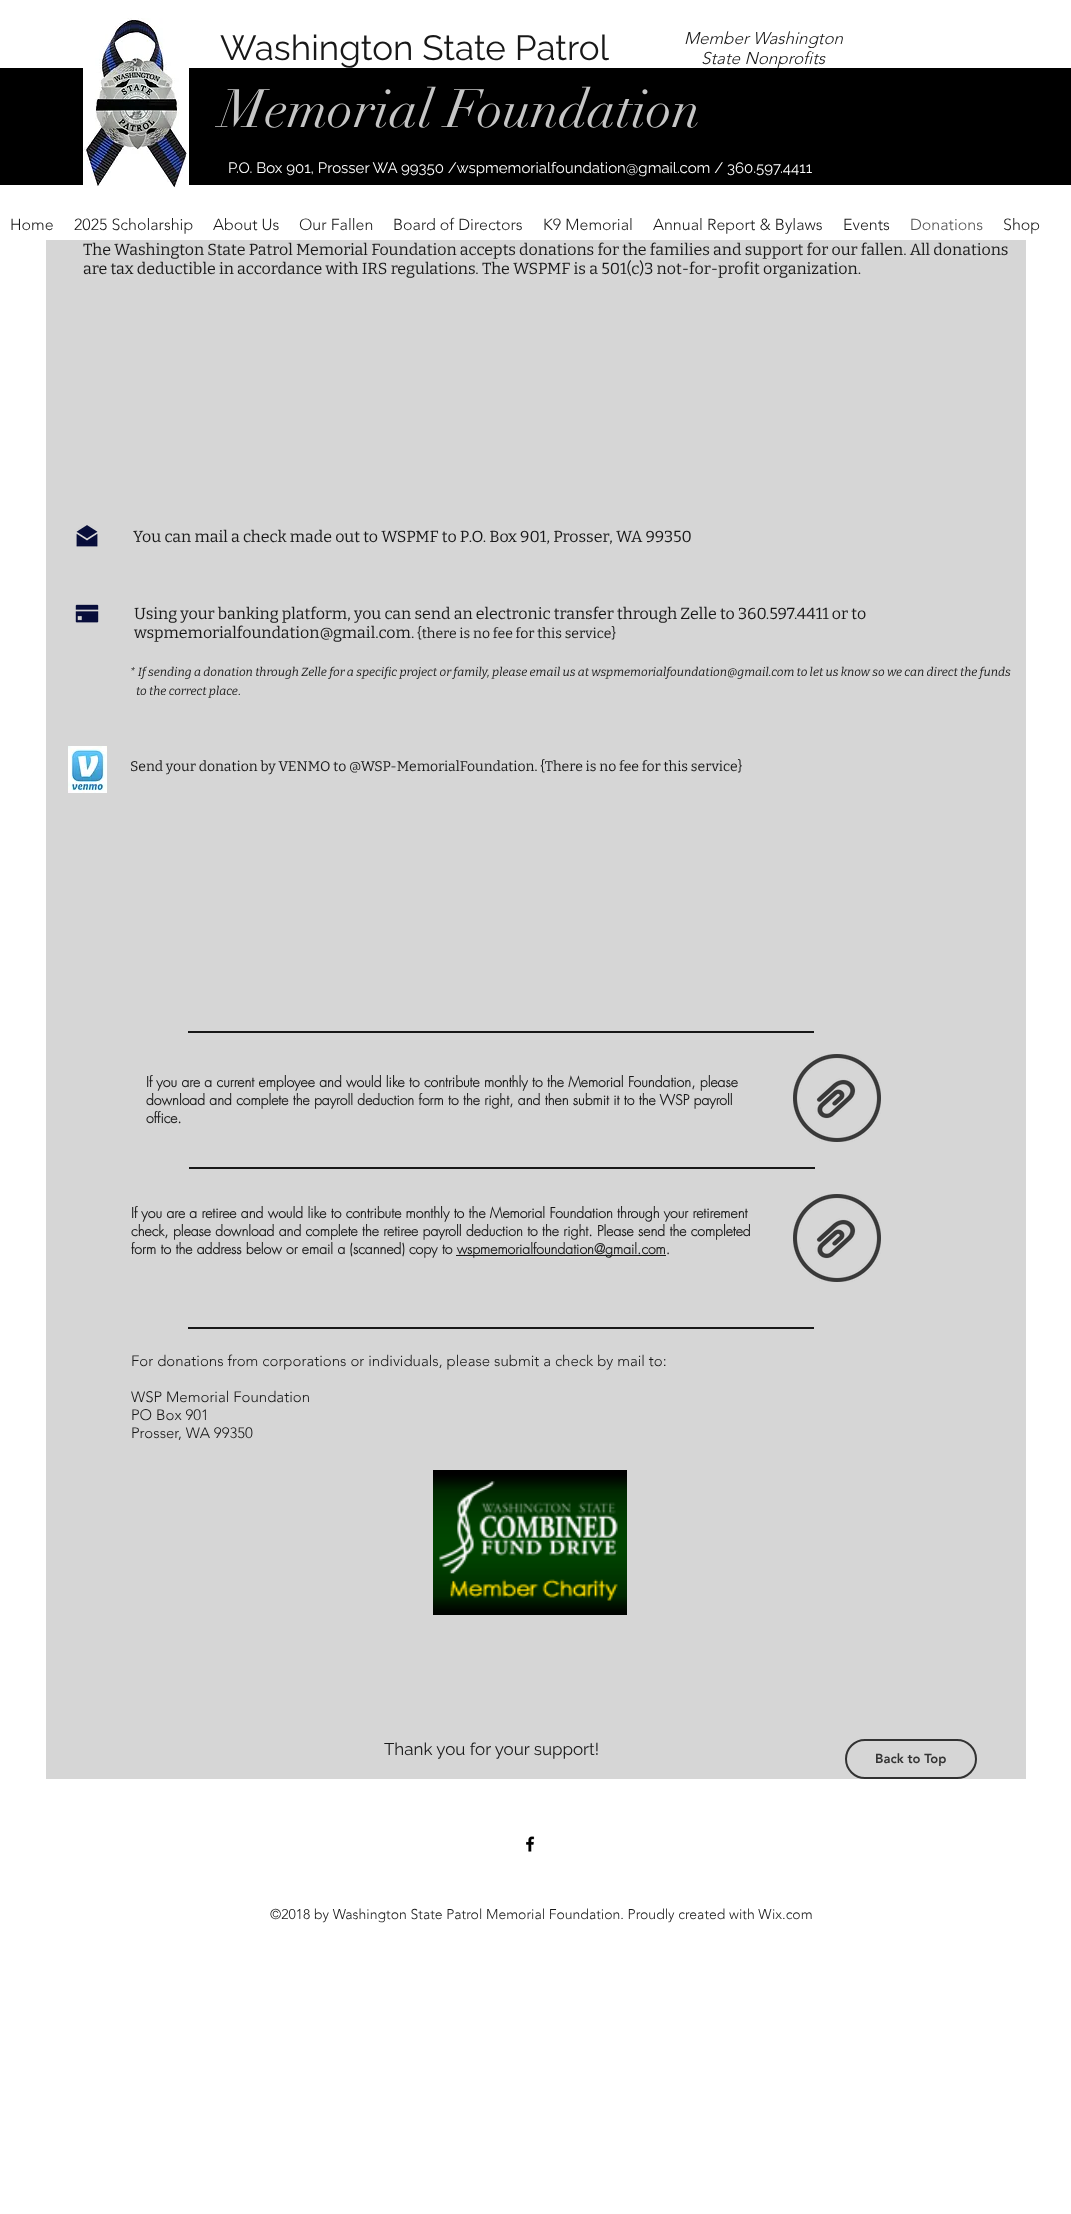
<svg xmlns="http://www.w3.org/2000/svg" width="1071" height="2214">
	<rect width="100%" height="100%" fill="#FFFFFF" />
	<text x="220" y="60" font-family="Raleway" font-size="35" fill="#181818">Washington State Patrol</text>
	<rect x="0" y="68" width="1071" height="117" fill="#000000" />
	<image x="83" y="18" width="106" height="170" href="assets/img1.png" />
	<g font-family="'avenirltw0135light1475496'" font-size="17" font-weight="300" font-style="italic" fill="#181818">
		<text x="684" y="44">Member Washington</text>
		<text x="701" y="64">State Nonprofits</text>
	</g>
	<text x="220" y="127" font-family="didot" font-size="53" fill="#C5C5C5">Memorial Foundation</text>
	<text x="228" y="173" font-family="Raleway" font-size="15" fill="#FFFFFF">P.O. Box 901, Prosser WA 99350 /wspmemorialfoundation@gmail.com / 360.597.4411</text>
	<g font-family="'avenirltw0135light1475496'" font-size="16" font-weight="300" fill="#181818">
		<text x="10" y="230">Home</text>
		<text x="74" y="230">2025 Scholarship</text>
		<text x="213" y="230">About Us</text>
		<text x="299" y="230">Our Fallen</text>
		<text x="393" y="230">Board of Directors</text>
		<text x="543" y="230">K9 Memorial</text>
		<text x="653" y="230">Annual Report &amp; Bylaws</text>
		<text x="843" y="230">Events</text>
	</g>
	<text x="910" y="230" font-family="'avenirltw0135light1475496'" font-size="16" font-weight="300" fill="#525252">Donations</text>
	<text x="1003" y="230" font-family="'avenirltw0135light1475496'" font-size="16" font-weight="300" fill="#181818">Shop</text>
	<rect x="46" y="240" width="980" height="1539" fill="#D6D6D6" />
	<g font-family="Bitter" font-size="16" fill="#181818">
		<text x="83" y="255">The Washington State Patrol Memorial Foundation accepts donations for the families and support for our fallen. All donations</text>
		<text x="83" y="274">are tax deductible in accordance with IRS regulations. The WSPMF is a 501(c)3 not-for-profit organization.</text>
		<text x="133" y="542">You can mail a check made out to WSPMF to P.O. Box 901, Prosser, WA 99350</text>
		<text x="134" y="619">Using your banking platform, you can send an electronic transfer through Zelle to 360.597.4411 or to</text>
		<text x="134" y="638">wspmemorialfoundation@gmail.com.</text>
	</g>
	<text x="417" y="638" font-family="Bitter" font-size="14" fill="#181818">{there is no fee for this service}</text>
	<g font-family="Bitter" font-size="12" font-weight="100" font-style="italic" fill="#181818">
		<text x="130" y="676">* If sending a donation through Zelle for a specific project or family, please email us at wspmemorialfoundation@gmail.com to let us know so we can direct the funds</text>
		<text x="136" y="695">to the correct place</text>
	</g>
	<text x="238" y="695" font-family="Bitter" font-size="12" fill="#181818">.</text>
	<text x="130" y="771" font-family="Bitter" font-size="14" fill="#181818">Send your donation by VENMO to @WSP-MemorialFoundation. {There is no fee for this service}</text>
	<image x="76" y="525" width="22" height="22" href="assets/img2.png" />
	<image x="75" y="604" width="24" height="19" href="assets/img3.png" />
	<image x="68" y="746" width="39" height="47" href="assets/img4.png" />
	<rect x="188" y="1031" width="626" height="2" fill="#181818" />
	<g font-family="futura" font-size="14" font-weight="700" fill="#181818">
		<text x="146" y="1087">If you are a current employee and would like to contribute monthly to the Memorial Foundation, please</text>
		<text x="146" y="1105">download and complete the payroll deduction form to the right, and then submit it to the WSP payroll</text>
		<text x="146" y="1123">office.</text>
	</g>
	<image x="793" y="1054" width="88" height="88" href="assets/img5.png" />
	<rect x="189" y="1167" width="626" height="2" fill="#181818" />
	<g font-family="futura" font-size="14" font-weight="700" fill="#181818">
		<text x="131" y="1218">If you are a retiree and would like to contribute monthly to the Memorial Foundation through your retirement</text>
		<text x="131" y="1236">check, please download and complete the retiree payroll deduction to the right. Please send the completed</text>
		<text x="131" y="1254">form to the address below or email a (scanned) copy to w</text>
	</g>
	<rect x="456" y="1255" width="210" height="1" fill="#181818" />
	<text x="467" y="1254" font-family="futura" font-size="14" font-weight="700" fill="#181818">spmemorialfoundation@gmail.com.</text>
	<image x="793" y="1194" width="88" height="88" href="assets/img5.png" />
	<rect x="188" y="1327" width="626" height="2" fill="#181818" />
	<g font-family="'avenirltw0135light1475496'" font-size="15" font-weight="300" fill="#181818">
		<text x="131" y="1366">For donations from corporations or individuals, please submit a check by mail to:</text>
		<text x="131" y="1402">WSP Memorial Foundation</text>
		<text x="131" y="1420">PO Box 901</text>
		<text x="131" y="1438">Prosser, WA 99350</text>
	</g>
	<image x="433" y="1470" width="194" height="145" href="assets/img6.png" />
	<text x="384" y="1755" font-family="Raleway" font-size="17" fill="#181818">Thank you for your support!</text>
	<rect x="846" y="1740" width="130" height="38" rx="19" fill="none" stroke="#323232" stroke-width="2" />
	<text x="875" y="1763" font-family="'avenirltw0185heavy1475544'" font-size="13" font-weight="900" fill="#323232">Back to Top</text>
	<image x="526" y="1836" width="9" height="16" href="assets/img7.png" />
	<text x="270" y="1919" font-family="'avenirltw0135light1475496'" font-size="14" font-weight="300" fill="#181818">©2018 by Washington State Patrol Memorial Foundation. Proudly created with Wix.com</text>
</svg>
